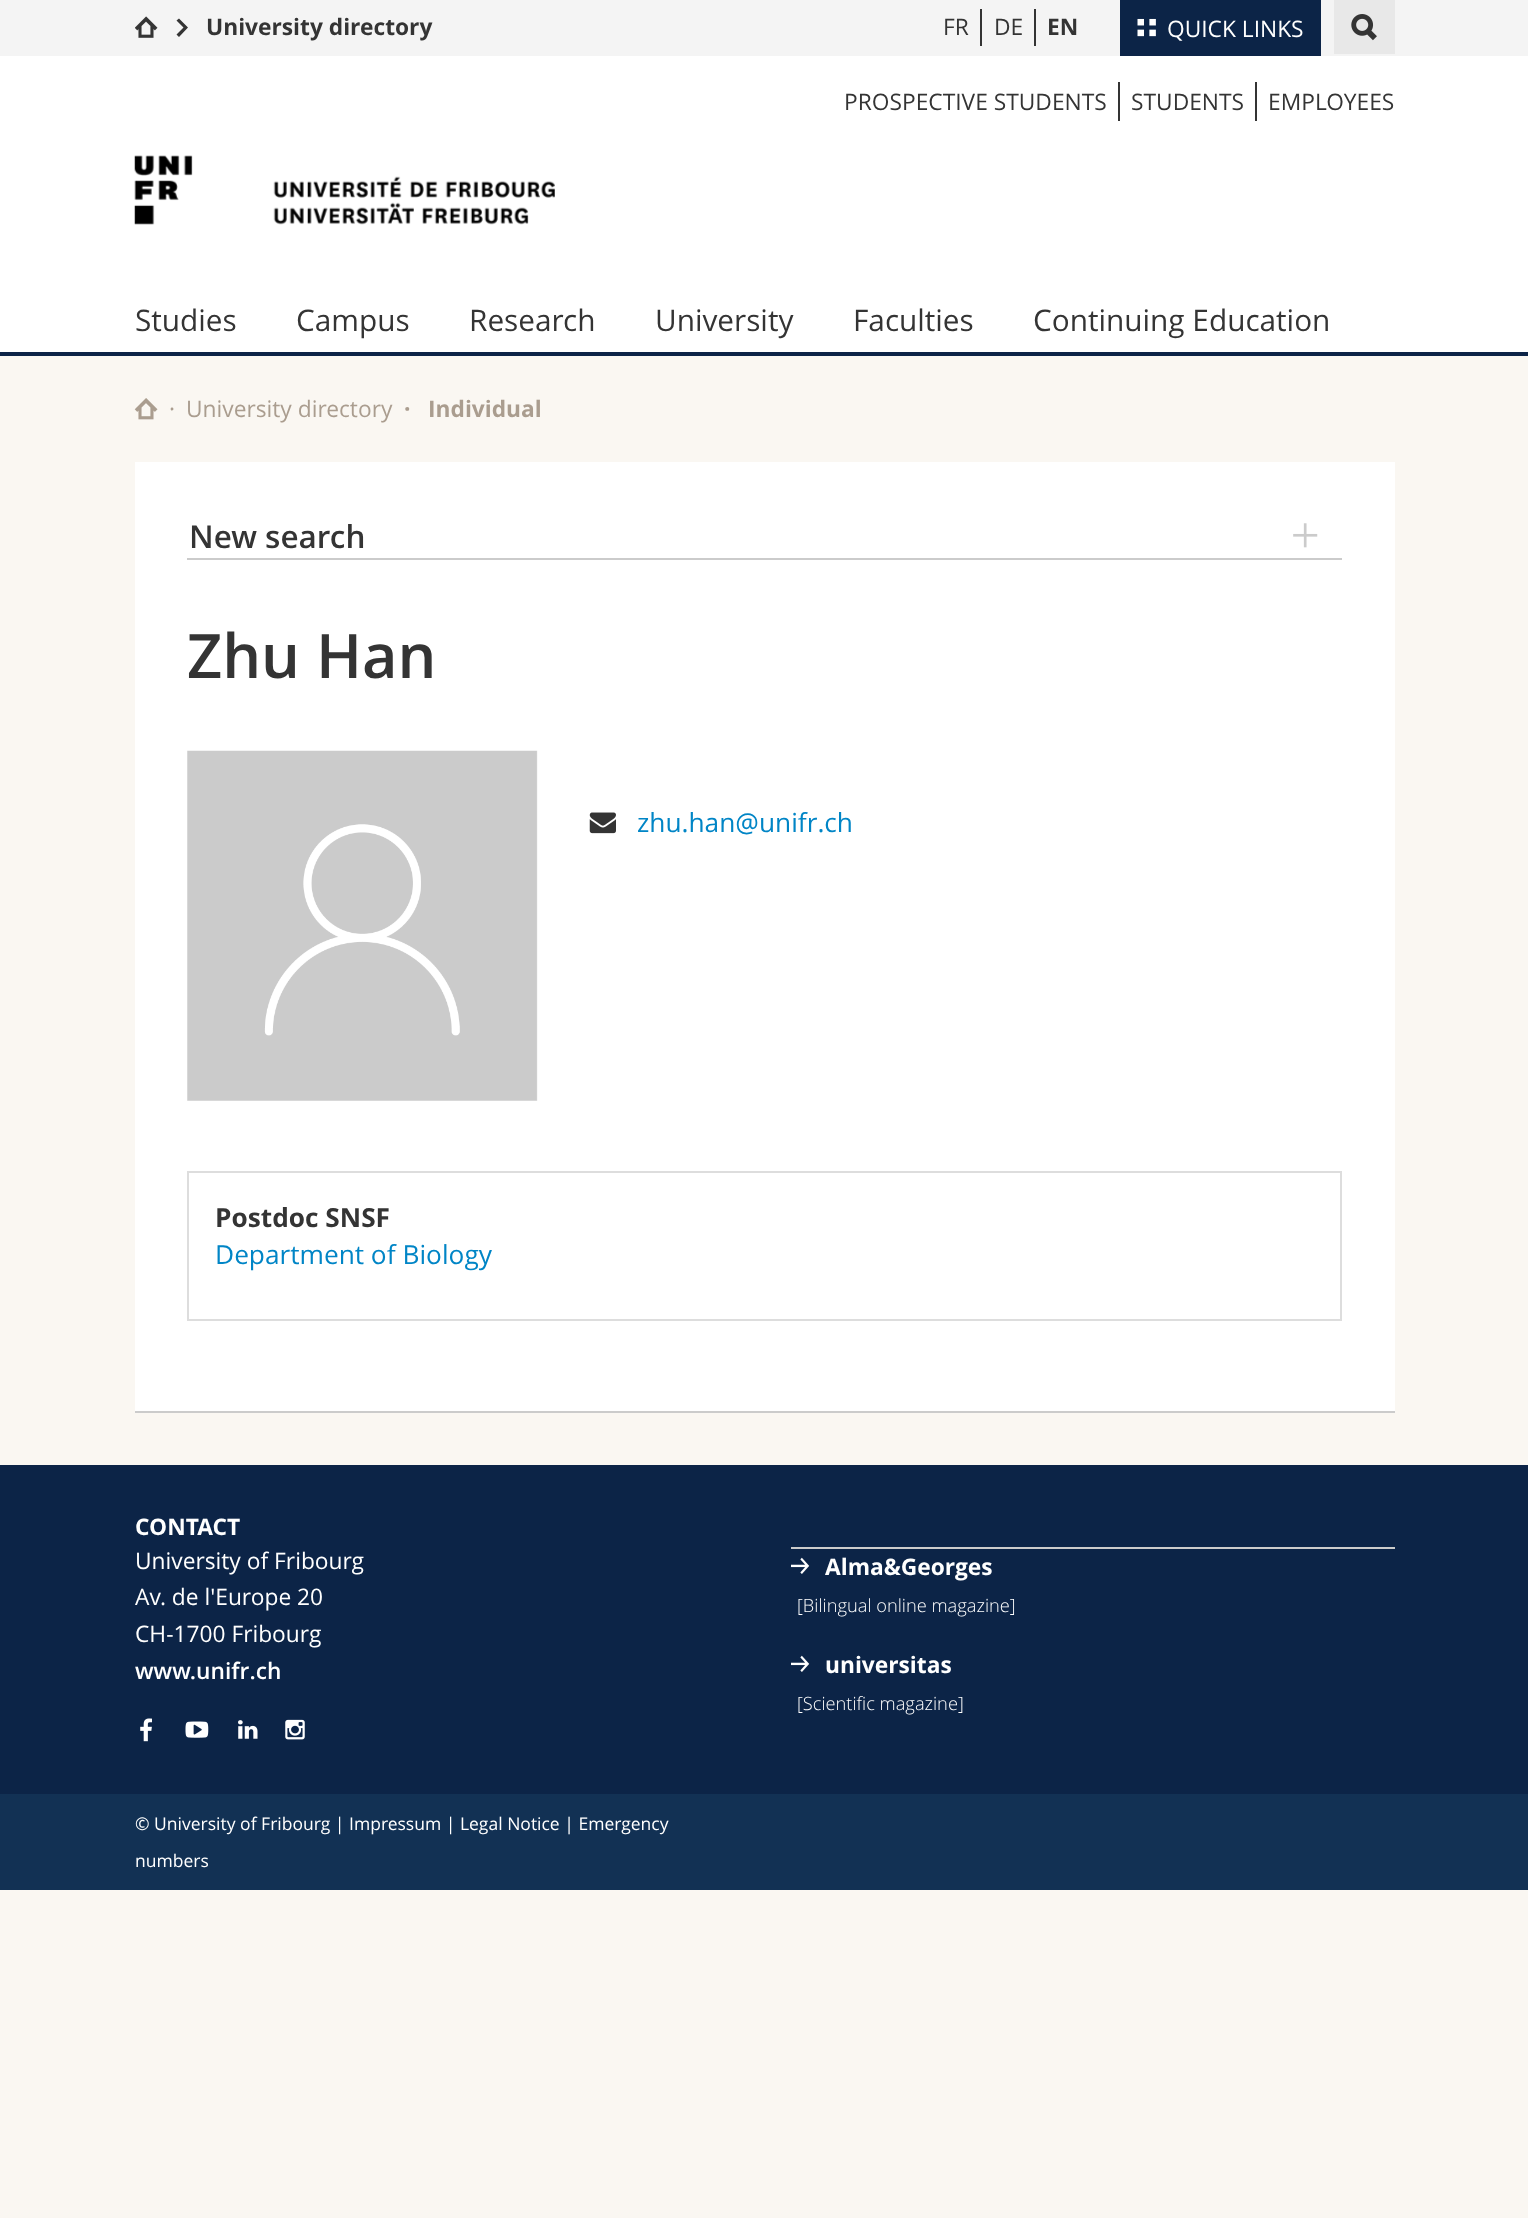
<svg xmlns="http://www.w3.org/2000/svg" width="1528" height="2218">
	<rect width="100%" height="100%" fill="#FAF7F2" />
	<rect x="0" y="0" width="1528" height="56" fill="#F4F4F4" />
	<image x="135" y="16" width="23" height="22" href="assets/img1.png" />
	<path d="M179 18.5L176.5 20.5L183.5 27.5L176.5 34.5L179 37L188 27.5Z" fill="#343434" />
	<text x="206" y="35" font-family="Open Sans" font-size="22.75" font-weight="700" fill="#343434">University directory</text>
	<text x="943" y="35" font-family="Open Sans" font-size="22.75" fill="#343434">FR</text>
	<rect x="980" y="9" width="2" height="37" fill="#343434" />
	<text x="994" y="35" font-family="Open Sans" font-size="22.75" fill="#343434">DE</text>
	<rect x="1034" y="9" width="2" height="37" fill="#343434" />
	<text x="1047" y="35" font-family="Open Sans" font-size="22.75" font-weight="700" fill="#343434">EN</text>
	<rect x="1120" y="0" width="201" height="56" fill="#0C2447" />
	<image x="1137" y="18" width="19" height="19" href="assets/img2.png" />
	<text x="1167" y="37" font-family="Open Sans" font-size="22.75" fill="#FFFFFF">QUICK LINKS</text>
	<rect x="1334" y="0" width="61" height="54" fill="#E8E8E8" />
	<image x="1351" y="14" width="26" height="27" href="assets/img3.png" />
	<rect x="0" y="56" width="1528" height="296" fill="#FFFFFF" />
	<text x="844" y="110" font-family="Open Sans" font-size="22.75" fill="#343434">PROSPECTIVE STUDENTS</text>
	<rect x="1118" y="82" width="2" height="39" fill="#343434" />
	<text x="1131" y="110" font-family="Open Sans" font-size="22.75" fill="#343434">STUDENTS</text>
	<rect x="1255" y="82" width="2" height="39" fill="#343434" />
	<text x="1268" y="110" font-family="Open Sans" font-size="22.75" fill="#343434">EMPLOYEES</text>
	<image x="134" y="155" width="421" height="70" href="assets/img4.png" />
	<g font-family="Open Sans" font-size="29.75" fill="#343434">
		<text x="135" y="331">Studies</text>
		<text x="296" y="331">Campus</text>
		<text x="469" y="331">Research</text>
		<text x="655" y="331">University</text>
		<text x="853" y="331">Faculties</text>
		<text x="1033" y="331">Continuing Education</text>
	</g>
	<rect x="0" y="352" width="1528" height="4" fill="#0C2447" />
	<image x="134" y="398" width="24" height="22" href="assets/img5.png" />
	<g font-family="Open Sans" font-size="22.75" fill="#AA9D8F">
		<text x="169" y="417">·</text>
		<text x="186" y="417">University directory</text>
	</g>
	<g font-family="Open Sans" font-size="22.75" font-weight="700" fill="#AA9D8F">
		<text x="404" y="417">·</text>
		<text x="428" y="417">Individual</text>
	</g>
	<rect x="135" y="462" width="1260" height="949" fill="#FFFFFF" />
	<rect x="135" y="1411" width="1260" height="2" fill="#CBCBCB" />
	<rect x="187" y="558" width="1155" height="2" fill="#CBCBCB" />
	<text x="189" y="548" font-family="Open Sans" font-size="31.5" font-weight="600" fill="#343434">New search</text>
	<image x="1293" y="523" width="25" height="25" href="assets/img6.png" />
	<text x="187" y="678" font-family="Open Sans" font-size="61.25" font-weight="600" fill="#343434">Zhu Han</text>
	<image x="187" y="750" width="351" height="351" href="assets/img7.png" />
	<image x="589" y="812" width="27" height="22" href="assets/img8.png" />
	<text x="637" y="832" font-family="Open Sans" font-size="26.25" fill="#0085C6">zhu.han@unifr.ch</text>
	<rect x="188" y="1172" width="1153" height="148" fill="none" stroke="#DDDDDD" stroke-width="2" />
	<text x="215" y="1227" font-family="Open Sans" font-size="26.25" font-weight="700" fill="#343434">Postdoc SNSF</text>
	<text x="215" y="1264" font-family="Open Sans" font-size="26.25" fill="#0085C6">Department of Biology</text>
	<rect x="0" y="1465" width="1528" height="329" fill="#0C2447" />
	<text x="135" y="1535" font-family="Open Sans" font-size="22.75" font-weight="700" fill="#FFFFFF">CONTACT</text>
	<g font-family="Open Sans" font-size="22.75" fill="#FFFFFF">
		<text x="135" y="1569">University of Fribourg</text>
		<text x="135" y="1605">Av. de l'Europe 20</text>
		<text x="135" y="1642">CH-1700 Fribourg</text>
	</g>
	<text x="135" y="1679" font-family="Open Sans" font-size="22.75" font-weight="600" fill="#FFFFFF">www.unifr.ch</text>
	<image x="140" y="1718" width="12" height="24" href="assets/img9.png" />
	<image x="185" y="1721" width="24" height="17" href="assets/img10.png" />
	<image x="238" y="1720" width="20" height="19" href="assets/img11.png" />
	<image x="285" y="1719" width="20" height="21" href="assets/img12.png" />
	<rect x="791" y="1547" width="604" height="2" fill="#CBCBCB" />
	<image x="791" y="1557" width="19" height="17" href="assets/img13.png" />
	<text x="825" y="1575" font-family="Open Sans" font-size="22.75" font-weight="700" fill="#FFFFFF">Alma&amp;Georges</text>
	<text x="797" y="1612" font-family="Open Sans" font-size="18.25" font-weight="300" fill="#FFFFFF">[Bilingual online magazine]</text>
	<image x="791" y="1655" width="19" height="17" href="assets/img13.png" />
	<text x="825" y="1673" font-family="Open Sans" font-size="22.75" font-weight="700" fill="#FFFFFF">universitas</text>
	<text x="797" y="1710" font-family="Open Sans" font-size="18.25" font-weight="300" fill="#FFFFFF">[Scientific magazine]</text>
	<rect x="0" y="1794" width="1528" height="96" fill="#123154" />
	<g font-family="Open Sans" font-size="17.5" fill="#FFFFFF">
		<text x="135" y="1830">© University of Fribourg | Impressum | Legal Notice | Emergency</text>
		<text x="135" y="1867">numbers</text>
	</g>
</svg>
